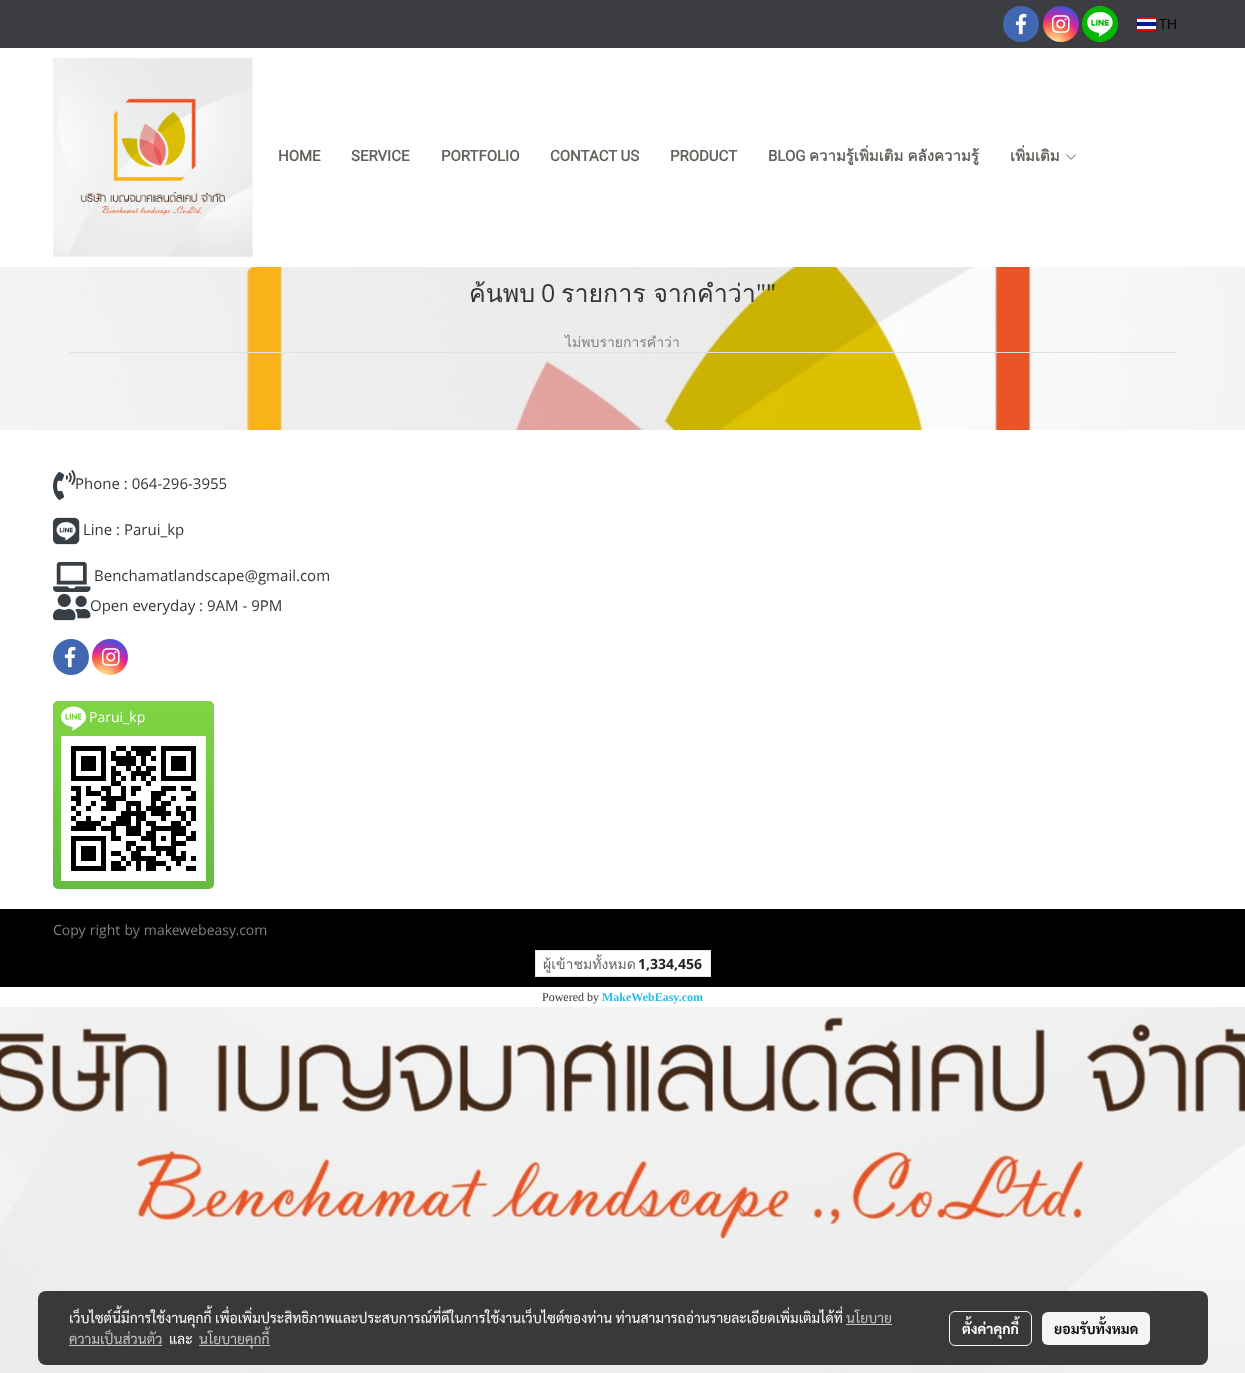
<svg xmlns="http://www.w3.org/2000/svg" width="1245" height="1373">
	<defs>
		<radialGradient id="g1" gradientUnits="userSpaceOnUse" cx="1054" cy="45" r="46"><stop offset="0" stop-color="#FDF497" /><stop offset="0.05" stop-color="#FDF497" /><stop offset="0.45" stop-color="#FD5949" /><stop offset="0.6" stop-color="#D6249F" /><stop offset="0.9" stop-color="#285AEB" /></radialGradient>
		<radialGradient id="g2" gradientUnits="userSpaceOnUse" cx="103" cy="678" r="46"><stop offset="0" stop-color="#FDF497" /><stop offset="0.05" stop-color="#FDF497" /><stop offset="0.45" stop-color="#FD5949" /><stop offset="0.6" stop-color="#D6249F" /><stop offset="0.9" stop-color="#285AEB" /></radialGradient>
		<linearGradient id="g3" gradientUnits="userSpaceOnUse" x1="134" y1="701" x2="134" y2="889"><stop offset="0" stop-color="#80D544" /><stop offset="1" stop-color="#65BC3E" /></linearGradient>
	</defs>
	<rect width="100%" height="100%" fill="#FFFFFF" />
	<image x="0" y="267" width="1245" height="1106" href="assets/img1.png" />
	<rect x="0" y="0" width="1245" height="48" fill="#3C3D41" />
	<circle cx="1021" cy="24" r="18" fill="#4267B2" />
	<image x="1015" y="13" width="12" height="22" href="assets/img2.png" />
	<circle cx="1061" cy="24" r="18" fill="url(#g1)" />
	<image x="1051" y="15" width="19" height="18" href="assets/img3.png" />
	<circle cx="1100" cy="24" r="18" fill="#00B800" />
	<image x="1082" y="6" width="36" height="36" href="assets/img4.png" />
	<rect x="1137" y="17" width="19" height="14" fill="#000000" fill-opacity="0.25" filter="blur(1px)" />
	<rect x="1137" y="19" width="19" height="10" fill="#FFFFFF" />
	<rect x="1137" y="22" width="19" height="4" fill="#001B9A" />
	<rect x="1137" y="17" width="19" height="2" fill="#E70000" />
	<rect x="1137" y="29" width="19" height="2" fill="#E70000" />
	<text x="1159" y="29" font-family="Open Sans" font-size="14" fill="#000000">TH</text>
	<image x="53" y="58" width="200" height="199" href="assets/img5.png" />
	<g font-family="Roboto" font-size="15" font-weight="700" fill="#64615C">
		<text x="278" y="161">HOME</text>
		<text x="351" y="161">SERVICE</text>
		<text x="441" y="161">PORTFOLIO</text>
		<text x="550" y="161">CONTACT US</text>
		<text x="670" y="161">PRODUCT</text>
		<text x="768" y="161">BLOG</text>
	</g>
	<g font-family="Loma" font-size="15" font-weight="700" fill="#64615C">
		<text x="809" y="161" word-spacing="-1">ความรู้เพิ่มเติม คลังความรู้</text>
		<text x="1010" y="161">เพิ่มเติม</text>
	</g>
	<image x="1066" y="154" width="10" height="6" href="assets/img6.png" />
	<text x="469" y="302" font-family="Loma" font-size="25" fill="#353535">ค้นพบ</text>
	<text x="541" y="302" font-family="Open Sans" font-size="25" fill="#353535">0</text>
	<text x="561" y="302" word-spacing="-1" font-family="Loma" font-size="25" fill="#353535">รายการ จากคำว่า</text>
	<text x="756" y="302" font-family="Open Sans" font-size="25" fill="#353535">""</text>
	<rect x="69" y="352" width="1108" height="1" fill="#DEE2E6" />
	<text x="565" y="347" font-family="Loma" font-size="14" fill="#808080">ไม่พบรายการคำว่า</text>
	<rect x="0" y="430" width="1245" height="479" fill="#FFFFFF" />
	<image x="53" y="470" width="23" height="30" href="assets/img7.png" />
	<text x="75" y="489" font-family="Open Sans" font-size="15" fill="#353535">Phone : 064-296-3955</text>
	<image x="53" y="517" width="27" height="28" href="assets/img8.png" />
	<text x="83" y="535" font-family="Open Sans" font-size="15" fill="#353535">Line : Parui_kp</text>
	<image x="53" y="562" width="38" height="30" href="assets/img9.png" />
	<g font-family="Open Sans" font-size="15" fill="#353535">
		<text x="94" y="581">Benchamatlandscape@gmail.com</text>
		<text x="90" y="611">Open everyday : 9AM - 9PM</text>
	</g>
	<image x="53" y="593" width="38" height="28" href="assets/img10.png" />
	<circle cx="71" cy="657" r="18" fill="#4267B2" />
	<image x="64" y="646" width="12" height="22" href="assets/img2.png" />
	<circle cx="110" cy="657" r="18" fill="url(#g2)" />
	<image x="101" y="648" width="19" height="18" href="assets/img11.png" />
	<rect x="53" y="701" width="161" height="188" rx="5" fill="url(#g3)" />
	<image x="61" y="706" width="25" height="25" href="assets/img12.png" />
	<text x="89" y="722" font-family="Open Sans" font-size="14" fill="#FFFFFF">Parui_kp</text>
	<image x="61" y="736" width="145" height="145" href="assets/img13.png" />
	<rect x="0" y="909" width="1245" height="78" fill="#000000" />
	<text x="53" y="935" word-spacing="0.5" font-family="Open Sans" font-size="14" fill="#808080">Copy right by makewebeasy.com</text>
	<rect x="535.5" y="950.5" width="175" height="26" fill="#FFFFFF" stroke="#E5E5E5" />
	<text x="543" y="969" font-family="Loma" font-size="14" fill="#636363">ผู้เข้าชมทั้งหมด</text>
	<text x="638" y="969" font-family="Open Sans" font-size="14" font-weight="700" fill="#242424">1,334,456</text>
	<rect x="0" y="987" width="1245" height="20" fill="#FFFFFF" />
	<text x="542" y="1001" font-family="Liberation Serif" font-size="12" fill="#353535">Powered by</text>
	<text x="602" y="1001" font-family="Liberation Serif" font-size="12" font-weight="700" fill="#28BEE3">MakeWebEasy.com</text>
	<rect x="38" y="1291" width="1170" height="74" rx="8" fill="#000000" fill-opacity="0.76" />
	<text x="69" y="1323" font-family="Sarabun" font-size="14" fill="#FFFFFF">เว็บไซต์นี้มีการใช้งานคุกกี้ เพื่อเพิ่มประสิทธิภาพและประสบการณ์ที่ดีในการใช้งานเว็บไซต์ของท่าน ท่านสามารถอ่านรายละเอียดเพิ่มเติมได้ที่</text>
	<text x="846" y="1323" font-family="Sarabun" font-size="14" fill="#C4C4C4">นโยบาย</text>
	<rect x="846" y="1324" width="46" height="1" fill="#C4C4C4" />
	<text x="69" y="1344" font-family="Sarabun" font-size="14" fill="#C4C4C4">ความเป็นส่วนตัว</text>
	<rect x="69" y="1345" width="93" height="1" fill="#C4C4C4" />
	<text x="169" y="1344" font-family="Sarabun" font-size="14" fill="#FFFFFF">และ</text>
	<rect x="199" y="1345" width="71" height="1" fill="#C4C4C4" />
	<text x="199" y="1344" font-family="Sarabun" font-size="14" fill="#C4C4C4">นโยบายคุกกี้</text>
	<rect x="949.5" y="1311.5" width="82" height="34" rx="5.5" fill="none" stroke="#F5F5F5" />
	<text x="962" y="1334" font-family="Sarabun" font-size="14" font-weight="700" fill="#FFFFFF">ตั้งค่าคุกกี้</text>
	<rect x="1042" y="1312" width="108" height="33" rx="6" fill="#F5F5F5" />
	<text x="1054" y="1334" font-family="Sarabun" font-size="14" font-weight="700" fill="#0C0C0C">ยอมรับทั้งหมด</text>
</svg>
